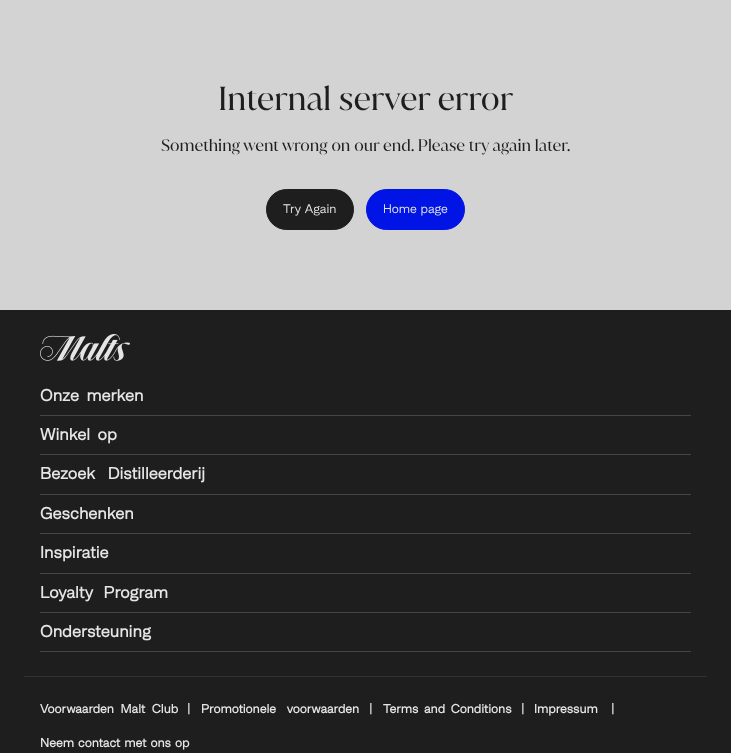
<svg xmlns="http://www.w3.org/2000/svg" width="731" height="753">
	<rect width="100%" height="100%" fill="#D3D3D3" />
	<text x="218" y="110" font-family="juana" font-size="32" fill="#1E1E1E">Internal server error</text>
	<text x="161" y="151" font-family="juana" font-size="16" fill="#1E1E1E">Something went wrong on our end. Please try again later.</text>
	<rect x="266.5" y="189.5" width="87" height="40" rx="20" fill="#1E1E1E" stroke="#1E1E1E" />
	<text x="283" y="213" word-spacing="1" font-family="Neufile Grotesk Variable" font-size="12" fill="#E6E6E6">Try Again</text>
	<rect x="366.5" y="189.5" width="98" height="40" rx="20" fill="#0015E5" stroke="#0015E5" />
	<text x="383" y="213" word-spacing="1" font-family="Neufile Grotesk Variable" font-size="12" fill="#E6E6E6">Home page</text>
	<rect x="0" y="310" width="731" height="443" fill="#1E1E1E" />
	<image x="40" y="334" width="90" height="27" href="assets/img1.png" />
	<rect x="40" y="415" width="651" height="1" fill="#454545" />
	<text x="40" y="401" word-spacing="4" font-family="Neufile Grotesk Variable" font-size="16" font-weight="700" fill="#E6E6E6">Onze merken</text>
	<rect x="40" y="454" width="651" height="1" fill="#454545" />
	<text x="40" y="440" word-spacing="4" font-family="Neufile Grotesk Variable" font-size="16" font-weight="700" fill="#E6E6E6">Winkel op</text>
	<rect x="40" y="494" width="651" height="1" fill="#454545" />
	<text x="40" y="479" word-spacing="9" font-family="Neufile Grotesk Variable" font-size="16" font-weight="700" fill="#E6E6E6">Bezoek Distilleerderij</text>
	<rect x="40" y="533" width="651" height="1" fill="#454545" />
	<text x="40" y="519" font-family="Neufile Grotesk Variable" font-size="16" font-weight="700" fill="#E6E6E6">Geschenken</text>
	<rect x="40" y="573" width="651" height="1" fill="#454545" />
	<text x="40" y="558" font-family="Neufile Grotesk Variable" font-size="16" font-weight="700" fill="#E6E6E6">Inspiratie</text>
	<rect x="40" y="612" width="651" height="1" fill="#454545" />
	<text x="40" y="598" word-spacing="7" font-family="Neufile Grotesk Variable" font-size="16" font-weight="700" fill="#E6E6E6">Loyalty Program</text>
	<rect x="40" y="651" width="651" height="1" fill="#454545" />
	<text x="40" y="637" font-family="Neufile Grotesk Variable" font-size="16" font-weight="700" fill="#E6E6E6">Ondersteuning</text>
	<rect x="24" y="676" width="683" height="1" fill="#323232" />
	<g font-family="Neufile Grotesk Variable" font-size="12" font-weight="700" fill="#E6E6E6">
		<text x="40" y="713" word-spacing="4">Voorwaarden Malt Club</text>
		<text x="187" y="713">|</text>
		<text x="201" y="713" word-spacing="8">Promotionele voorwaarden</text>
		<text x="369" y="713">|</text>
		<text x="383" y="713" word-spacing="3">Terms and Conditions</text>
		<text x="521" y="713">|</text>
		<text x="534" y="713">Impressum</text>
		<text x="611" y="713">|</text>
		<text x="40" y="747" word-spacing="1.5">Neem contact met ons op</text>
	</g>
</svg>
